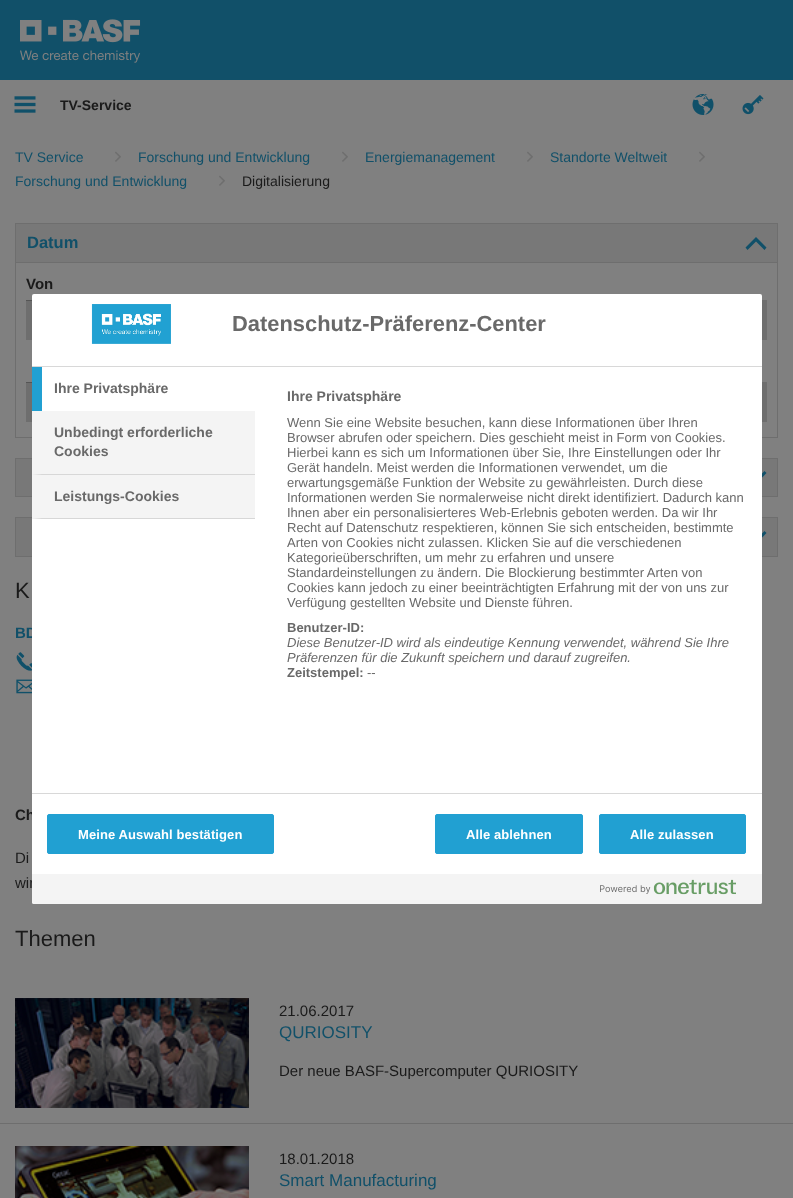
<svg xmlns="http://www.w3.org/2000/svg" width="793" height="1198">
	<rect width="100%" height="100%" fill="#808080" />
	<rect x="0" y="0" width="793" height="80" fill="#115069" />
	<image x="20" y="19" width="121" height="44" href="assets/img1.png" />
	<image x="14" y="96" width="22" height="17" href="assets/img2.png" />
	<text x="60" y="110" font-family="Liberation Sans" font-size="14" font-weight="700" fill="#1A1A1A">TV-Service</text>
	<image x="692" y="94" width="22" height="21" href="assets/img3.png" />
	<image x="742" y="95" width="22" height="20" href="assets/img4.png" />
	<text x="15" y="162" font-family="Liberation Sans" font-size="14" fill="#115069">TV Service</text>
	<image x="115" y="151" width="6" height="11" href="assets/img5.png" />
	<text x="138" y="162" font-family="Liberation Sans" font-size="14" fill="#115069">Forschung und Entwicklung</text>
	<image x="342" y="151" width="6" height="11" href="assets/img5.png" />
	<text x="365" y="162" font-family="Liberation Sans" font-size="14" fill="#115069">Energiemanagement</text>
	<image x="527" y="151" width="6" height="11" href="assets/img5.png" />
	<text x="550" y="162" font-family="Liberation Sans" font-size="14" fill="#115069">Standorte Weltweit</text>
	<image x="699" y="151" width="6" height="11" href="assets/img5.png" />
	<text x="15" y="186" font-family="Liberation Sans" font-size="14" fill="#115069">Forschung und Entwicklung</text>
	<image x="219" y="175" width="6" height="11" href="assets/img5.png" />
	<text x="242" y="186" font-family="Liberation Sans" font-size="14" fill="#1A1A1A">Digitalisierung</text>
	<rect x="15.5" y="223.5" width="762" height="39" fill="#787878" stroke="#6E6E6E" />
	<text x="27" y="248" font-family="Liberation Sans" font-size="16.5" font-weight="700" fill="#115069">Datum</text>
	<path d="M756 237L766.5 247.5L764.5 250L756 241.5L747.5 250L745.5 247.5Z" fill="#115069" />
	<rect x="777" y="263" width="1" height="175" fill="#6E6E6E" />
	<rect x="15" y="437" width="763" height="1" fill="#6E6E6E" />
	<rect x="15" y="263" width="1" height="175" fill="#6E6E6E" />
	<text x="26" y="289" font-family="Liberation Sans" font-size="15" font-weight="700" fill="#1A1A1A">Von</text>
	<rect x="26" y="301" width="6" height="39" fill="#6E6E6E" />
	<rect x="26" y="300" width="6" height="1" fill="#555555" />
	<rect x="762" y="300" width="5" height="40" fill="#6E6E6E" />
	<rect x="26" y="383" width="6" height="39" fill="#6E6E6E" />
	<rect x="26" y="382" width="6" height="1" fill="#555555" />
	<rect x="762" y="382" width="5" height="40" fill="#6E6E6E" />
	<rect x="15.5" y="458.5" width="762" height="38" fill="#787878" stroke="#6E6E6E" />
	<path d="M756 484L745.5 473.5L747.5 471L756 479.5L764.5 471L766.5 473Z" fill="#115069" />
	<rect x="15.5" y="517.5" width="762" height="39" fill="#787878" stroke="#6E6E6E" />
	<path d="M756 544L745.5 533.5L747.5 531L756 539.5L764.5 531L766.5 533Z" fill="#115069" />
	<text x="15" y="598" font-family="Liberation Sans" font-size="22" fill="#1A1A1A">K</text>
	<text x="15" y="638" font-family="Liberation Sans" font-size="15" font-weight="700" fill="#115069">BD</text>
	<image x="16" y="652" width="16" height="19" href="assets/img6.png" />
	<image x="16" y="679" width="16" height="15" href="assets/img7.png" />
	<text x="15" y="820" font-family="Liberation Sans" font-size="15" font-weight="700" fill="#1A1A1A">Ch</text>
	<g font-family="Liberation Sans" font-size="15" fill="#1A1A1A">
		<text x="15" y="863">Di</text>
		<text x="15" y="888">wir</text>
	</g>
	<text x="15" y="946" font-family="Liberation Sans" font-size="22" fill="#1A1A1A">Themen</text>
	<image x="15" y="998" width="234" height="110" href="assets/img8.png" />
	<text x="279" y="1016" font-family="Liberation Sans" font-size="15" fill="#1A1A1A">21.06.2017</text>
	<text x="279" y="1038" font-family="Liberation Sans" font-size="17" fill="#115069">QURIOSITY</text>
	<text x="279" y="1076" font-family="Liberation Sans" font-size="15" fill="#1A1A1A">Der neue BASF-Supercomputer QURIOSITY</text>
	<rect x="0" y="1123" width="793" height="1" fill="#6E6E6E" />
	<image x="15" y="1146" width="234" height="52" href="assets/img9.png" />
	<text x="279" y="1164" font-family="Liberation Sans" font-size="15" fill="#1A1A1A">18.01.2018</text>
	<text x="279" y="1186" font-family="Liberation Sans" font-size="17" fill="#115069">Smart Manufacturing</text>
	<rect x="32" y="294" width="730" height="610" rx="2" fill="#FFFFFF" />
	<rect x="32" y="366" width="730" height="1" fill="#D8D8D8" />
	<image x="91" y="304" width="80" height="40" href="assets/img10.png" />
	<text x="232" y="331" font-family="Liberation Sans" font-size="21.9" font-weight="700" fill="#696969">Datenschutz-Präferenz-Center</text>
	<rect x="32" y="367" width="10" height="44" fill="#21A0D2" />
	<text x="54" y="393" font-family="Liberation Sans" font-size="14" font-weight="700" fill="#696969">Ihre Privatsphäre</text>
	<rect x="32" y="411" width="223" height="108" fill="#F4F4F4" />
	<path d="M255 475H32L42 474H255Z" fill="#D7D7D7" />
	<g font-family="Liberation Sans" font-size="14" font-weight="700" fill="#696969">
		<text x="54" y="437">Unbedingt erforderliche</text>
		<text x="54" y="456">Cookies</text>
	</g>
	<path d="M255 519H32L42 518H255Z" fill="#D7D7D7" />
	<g font-family="Liberation Sans" font-size="14" font-weight="700" fill="#696969">
		<text x="54" y="501">Leistungs-Cookies</text>
		<text x="287" y="401">Ihre Privatsphäre</text>
	</g>
	<g font-family="Liberation Sans" font-size="13" fill="#696969">
		<text x="287" y="427">Wenn Sie eine Website besuchen, kann diese Informationen über Ihren</text>
		<text x="287" y="442">Browser abrufen oder speichern. Dies geschieht meist in Form von Cookies.</text>
		<text x="287" y="457">Hierbei kann es sich um Informationen über Sie, Ihre Einstellungen oder Ihr</text>
		<text x="287" y="472">Gerät handeln. Meist werden die Informationen verwendet, um die</text>
		<text x="287" y="487">erwartungsgemäße Funktion der Website zu gewährleisten. Durch diese</text>
		<text x="287" y="502">Informationen werden Sie normalerweise nicht direkt identifiziert. Dadurch kann</text>
		<text x="287" y="517">Ihnen aber ein personalisierteres Web-Erlebnis geboten werden. Da wir Ihr</text>
		<text x="287" y="532">Recht auf Datenschutz respektieren, können Sie sich entscheiden, bestimmte</text>
		<text x="287" y="547">Arten von Cookies nicht zulassen. Klicken Sie auf die verschiedenen</text>
		<text x="287" y="562">Kategorieüberschriften, um mehr zu erfahren und unsere</text>
		<text x="287" y="577">Standardeinstellungen zu ändern. Die Blockierung bestimmter Arten von</text>
		<text x="287" y="592">Cookies kann jedoch zu einer beeinträchtigten Erfahrung mit der von uns zur</text>
		<text x="287" y="607">Verfügung gestellten Website und Dienste führen.</text>
	</g>
	<text x="287" y="632" font-family="Liberation Sans" font-size="13" font-weight="700" fill="#696969">Benutzer-ID:</text>
	<g font-family="Liberation Sans" font-size="13" font-style="italic" fill="#696969">
		<text x="287" y="647">Diese Benutzer-ID wird als eindeutige Kennung verwendet, während Sie Ihre</text>
		<text x="287" y="662">Präferenzen für die Zukunft speichern und darauf zugreifen.</text>
	</g>
	<text x="287" y="677" font-family="Liberation Sans" font-size="13" font-weight="700" fill="#696969">Zeitstempel:</text>
	<text x="367" y="677" font-family="Liberation Sans" font-size="13" fill="#696969">--</text>
	<rect x="32" y="793" width="730" height="1" fill="#D8D8D8" />
	<rect x="47.5" y="814.5" width="226" height="39" rx="1.5" fill="#21A0D2" stroke="#21A0D2" />
	<text x="78" y="839" font-family="Liberation Sans" font-size="13" font-weight="700" letter-spacing="0.1" fill="#FFFFFF">Meine Auswahl bestätigen</text>
	<rect x="435.5" y="814.5" width="147" height="39" rx="1.5" fill="#21A0D2" stroke="#21A0D2" />
	<text x="466" y="839" font-family="Liberation Sans" font-size="13" font-weight="700" letter-spacing="0.1" fill="#FFFFFF">Alle ablehnen</text>
	<rect x="599.5" y="814.5" width="146" height="39" rx="1.5" fill="#21A0D2" stroke="#21A0D2" />
	<text x="630" y="839" font-family="Liberation Sans" font-size="13" font-weight="700" letter-spacing="0.1" fill="#FFFFFF">Alle zulassen</text>
	<path d="M32 874H762V902C762 903 761 904 760 904H34C33 904 32 903 32 902Z" fill="#F4F4F4" />
	<image x="600" y="879" width="136" height="16" href="assets/img11.png" />
</svg>
